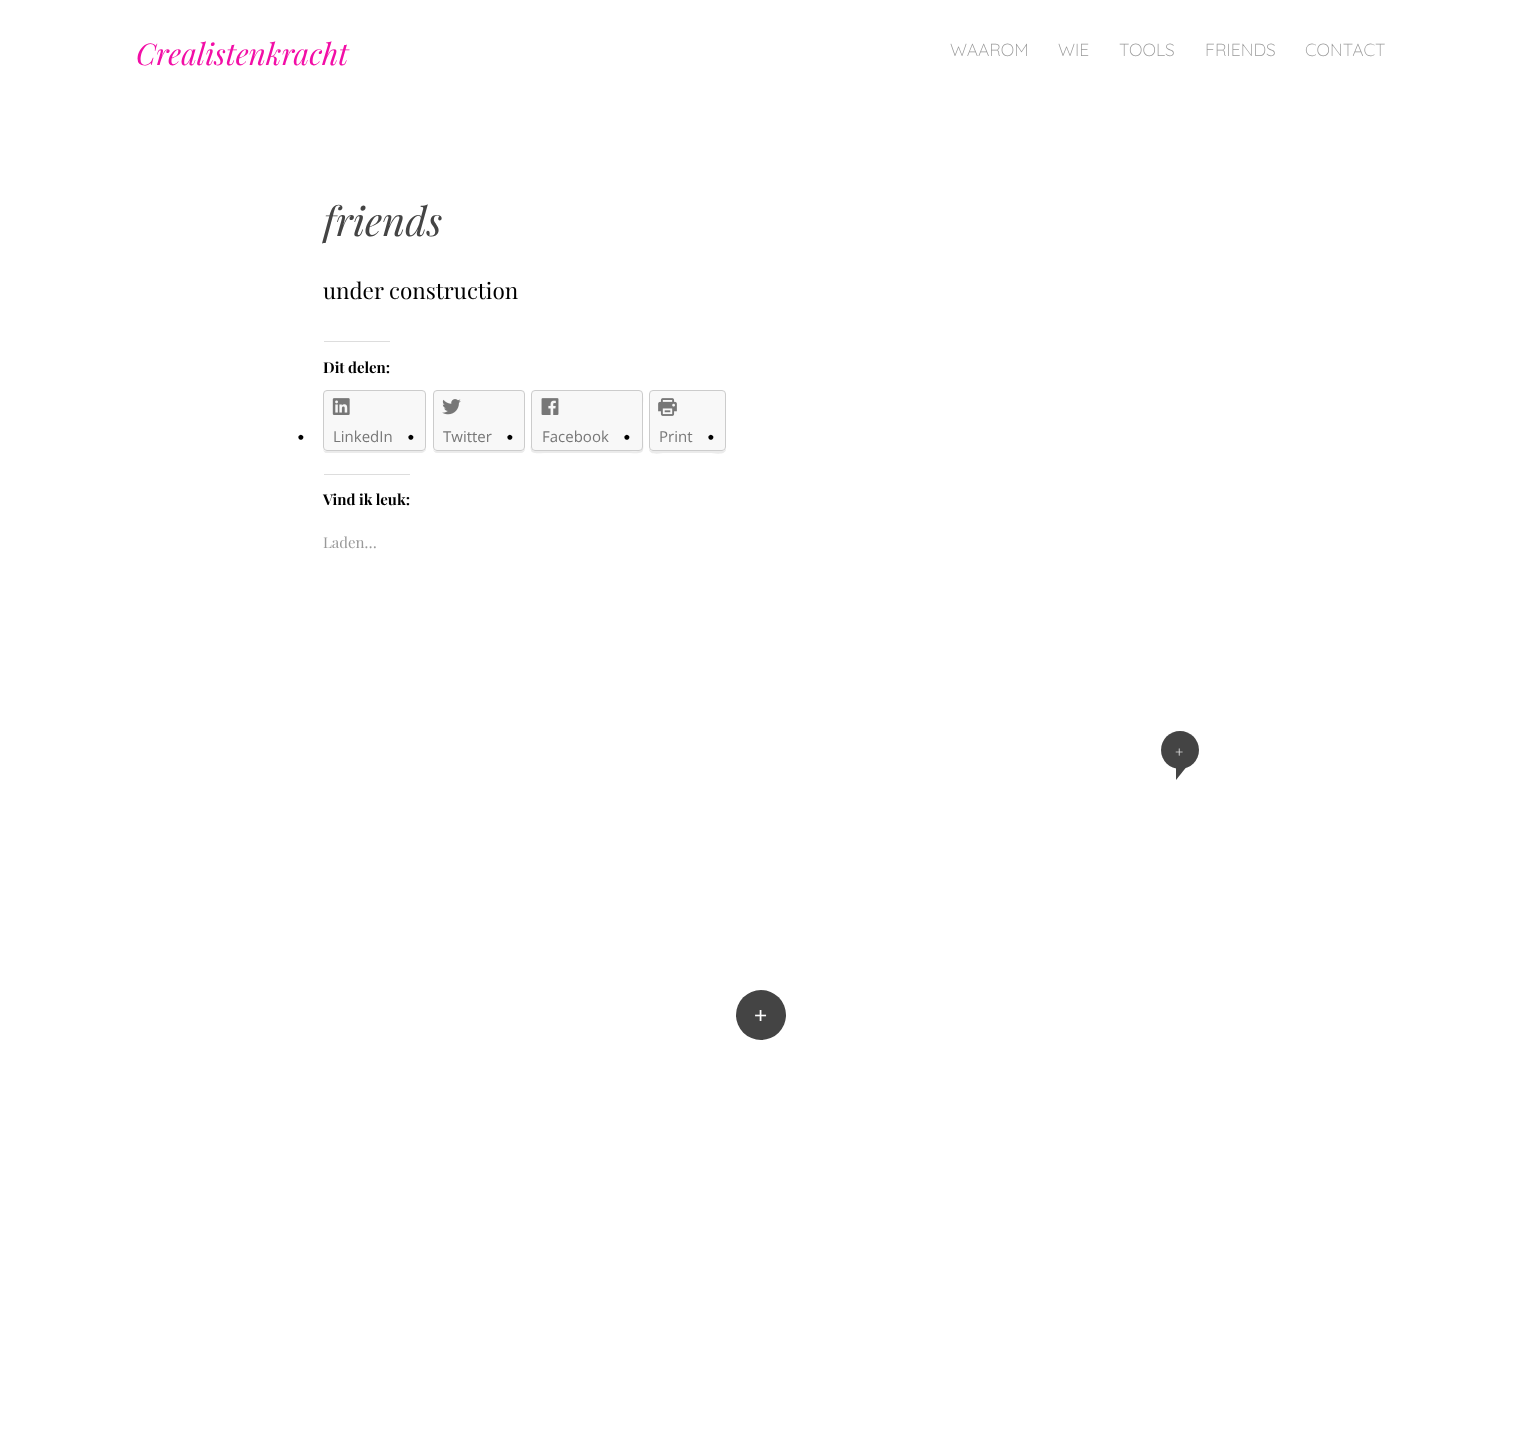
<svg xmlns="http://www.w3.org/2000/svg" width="1521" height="1454">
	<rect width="100%" height="100%" fill="#FFFFFF" />
	<text x="136" y="65" font-family="Playfair Display" font-size="30" font-style="italic" fill="#F20EA6">Crealistenkracht</text>
	<g font-family="Quicksand" font-size="17.5" font-weight="300" fill="#999999">
		<text x="950" y="56">WAAROM</text>
		<text x="1058" y="56">WIE</text>
		<text x="1119" y="56">TOOLS</text>
		<text x="1205" y="56">FRIENDS</text>
		<text x="1305" y="56">CONTACT</text>
	</g>
	<text x="323" y="236" font-family="Playfair Display" font-size="40" font-style="italic" fill="#444444">friends</text>
	<text x="323" y="299" font-family="Playfair Display" font-size="22.5" fill="#000000">under construction</text>
	<rect x="324" y="341" width="66" height="1" fill="#DDDDDD" />
	<text x="323" y="373" font-family="Playfair Display" font-size="15" font-weight="700" fill="#000000">Dit delen:</text>
	<text x="297" y="442" font-family="Playfair Display" font-size="17.5" fill="#000000">•</text>
	<path d="M323 449C323 451 325 453 326 453H422L424 452L426 450V449C425 450 424 451 422 451H326C325 451 324 451 323 449Z" fill="#EBEBEB" />
	<rect x="323.5" y="390.5" width="102" height="60" rx="3.5" fill="#F8F8F8" stroke="#CCCCCC" />
	<image x="332" y="398" width="18" height="17" href="assets/img1.png" />
	<text x="333" y="442" font-family="Open Sans" font-size="15" fill="#777777">LinkedIn</text>
	<text x="407" y="442" font-family="Playfair Display" font-size="17.5" fill="#000000">•</text>
	<path d="M433 449C433 451 435 453 437 453H521C523 453 525 451 525 449V448C525 450 523 451 521 451H436C435 451 434 451 433 449Z" fill="#EBEBEB" />
	<rect x="433.5" y="390.5" width="91" height="60" rx="3.5" fill="#F8F8F8" stroke="#CCCCCC" />
	<image x="442" y="399" width="19" height="16" href="assets/img2.png" />
	<text x="443" y="442" font-family="Open Sans" font-size="15" fill="#777777">Twitter</text>
	<text x="506" y="442" font-family="Playfair Display" font-size="17.5" fill="#000000">•</text>
	<path d="M531 394V431C531 457 526 453 552 453H622C648 453 643 457 643 431V404C643 404 644 396 642 393V430C642 455 647 451 621 451H535C529 451 531 441 531 439Z" fill="#EBEBEB" />
	<rect x="531.5" y="390.5" width="111" height="60" rx="3.5" fill="#F8F8F8" stroke="#CCCCCC" />
	<image x="541" y="398" width="18" height="17" href="assets/img3.png" />
	<text x="542" y="442" font-family="Open Sans" font-size="15" fill="#777777">Facebook</text>
	<text x="623" y="442" font-family="Playfair Display" font-size="17.5" fill="#000000">•</text>
	<path d="M649 449C649 456 662 453 664 453H710C713 453 726 456 726 449C725 450 724 451 722 451H652C651 451 650 450 649 449Z" fill="#EBEBEB" />
	<rect x="649.5" y="390.5" width="76" height="60" rx="3.5" fill="#F8F8F8" stroke="#CCCCCC" />
	<image x="658" y="398" width="19" height="18" href="assets/img4.png" />
	<text x="659" y="442" font-family="Open Sans" font-size="15" fill="#777777">Print</text>
	<text x="707" y="442" font-family="Playfair Display" font-size="17.5" fill="#000000">•</text>
	<rect x="324" y="474" width="86" height="1" fill="#DDDDDD" />
	<text x="323" y="505" font-family="Playfair Display" font-size="15" font-weight="700" fill="#000000">Vind ik leuk:</text>
	<text x="323" y="548" font-family="Playfair Display" font-size="15" fill="#999999">Laden…</text>
	<path d="M1176 767.5H1186L1176 780Z" fill="#444444" />
	<circle cx="1180" cy="750" r="19" fill="#444444" />
	<text x="1175" y="757" font-family="Quicksand" font-size="15" font-weight="300" fill="#FFFFFF">+</text>
	<circle cx="761" cy="1015" r="25" fill="#444444" />
	<text x="754" y="1023" font-family="Liberation Sans" font-size="22.5" fill="#FFFFFF">+</text>
</svg>
